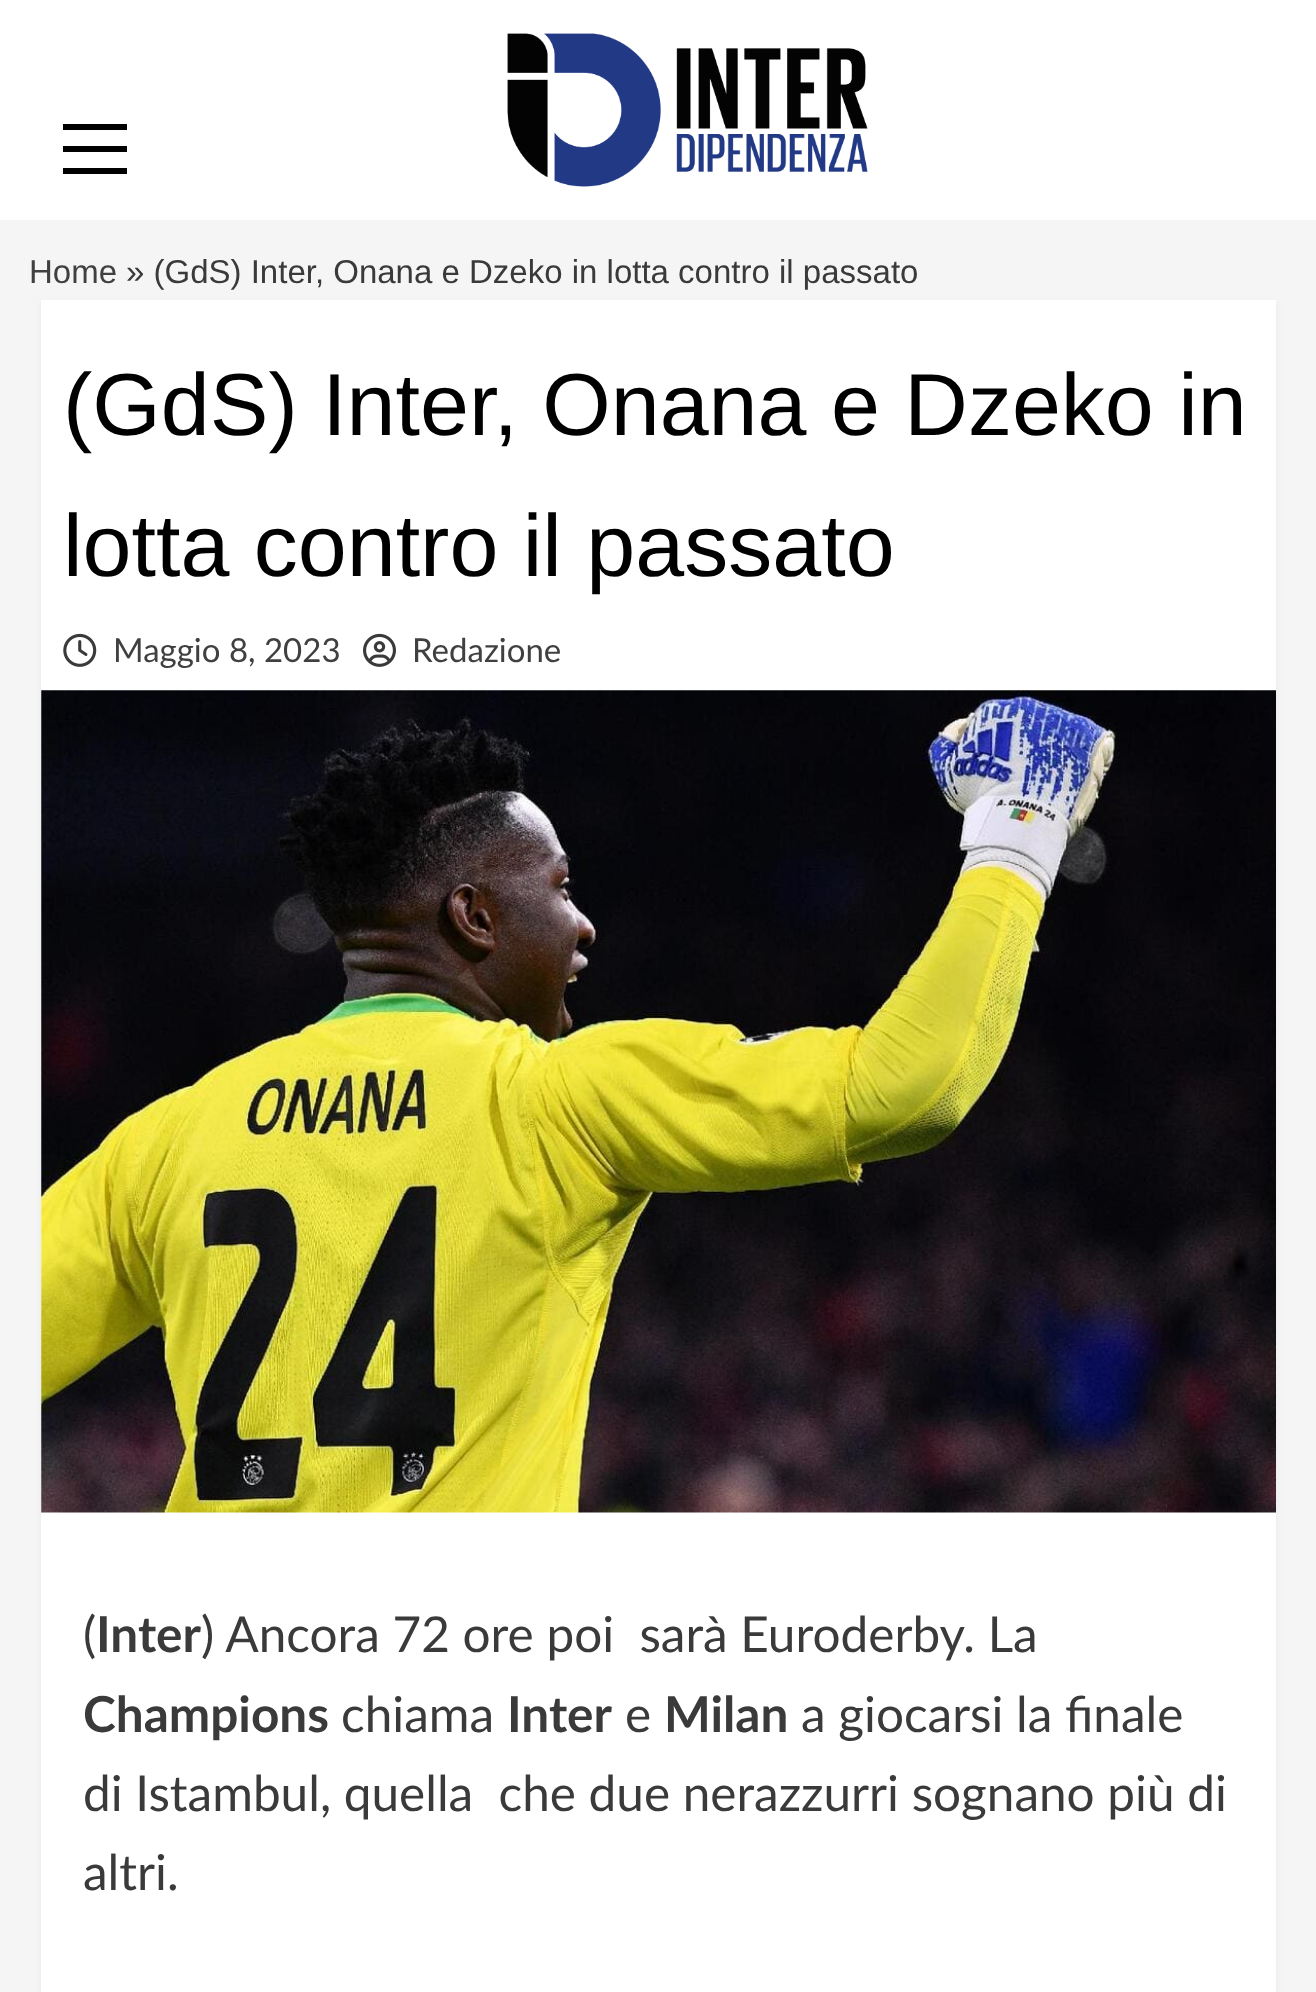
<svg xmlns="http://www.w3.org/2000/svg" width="1316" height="1992">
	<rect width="100%" height="100%" fill="#F5F5F5" />
	<rect x="0" y="0" width="1316" height="220" fill="#FFFFFF" />
	<image x="507" y="33" width="361" height="154" href="assets/img1.png" />
	<rect x="63" y="146" width="64" height="6" fill="#000000" />
	<rect x="63" y="124" width="64" height="6" fill="#000000" />
	<rect x="63" y="168" width="64" height="6" fill="#000000" />
	<text x="29" y="283" font-family="Liberation Sans" font-size="33" fill="#404040">Home</text>
	<text x="126" y="283" font-family="Liberation Sans" font-size="33" fill="#3A3A3A">» (GdS) Inter, Onana e Dzeko in lotta contro il passato</text>
	<rect x="41" y="303" width="1235" height="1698" fill="#000000" fill-opacity="0.05" filter="blur(3px)" />
	<rect x="41" y="300" width="1235" height="1692" fill="#FFFFFF" />
	<g font-family="Liberation Sans" font-size="88" fill="#000000">
		<text x="63" y="435">(GdS) Inter, Onana e Dzeko in</text>
		<text x="63" y="576">lotta contro il passato</text>
	</g>
	<image x="63" y="633" width="34" height="34" href="assets/img2.png" />
	<text x="113" y="662" font-family="Lato" font-size="33" fill="#404040">Maggio 8, 2023</text>
	<image x="363" y="633" width="33" height="34" href="assets/img3.png" />
	<text x="412" y="662" font-family="Lato" font-size="33" fill="#404040">Redazione</text>
	<image x="41" y="690" width="1235" height="823" href="assets/img4.png" />
	<text x="83" y="1652" font-family="Lato" font-size="49.5" fill="#3A3A3A">(</text>
	<text x="96" y="1652" font-family="Lato" font-size="49.5" font-weight="700" fill="#3A3A3A">Inter</text>
	<text x="201" y="1652" font-family="Lato" font-size="49.5" fill="#3A3A3A" xml:space="preserve">) Ancora 72 ore poi  sarà Euroderby. La</text>
	<text x="83" y="1732" font-family="Lato" font-size="49.5" font-weight="700" fill="#3A3A3A">Champions</text>
	<text x="341" y="1732" font-family="Lato" font-size="49.5" fill="#3A3A3A">chiama</text>
	<text x="507" y="1732" font-family="Lato" font-size="49.5" font-weight="700" fill="#3A3A3A">Inter</text>
	<text x="625" y="1732" font-family="Lato" font-size="49.5" fill="#3A3A3A">e</text>
	<text x="664" y="1732" font-family="Lato" font-size="49.5" font-weight="700" fill="#3A3A3A">Milan</text>
	<g font-family="Lato" font-size="49.5" fill="#3A3A3A">
		<text x="801" y="1732">a giocarsi la finale</text>
		<text x="83" y="1811" xml:space="preserve">di Istambul, quella  che due nerazzurri sognano più di</text>
		<text x="83" y="1890">altri.</text>
	</g>
</svg>
